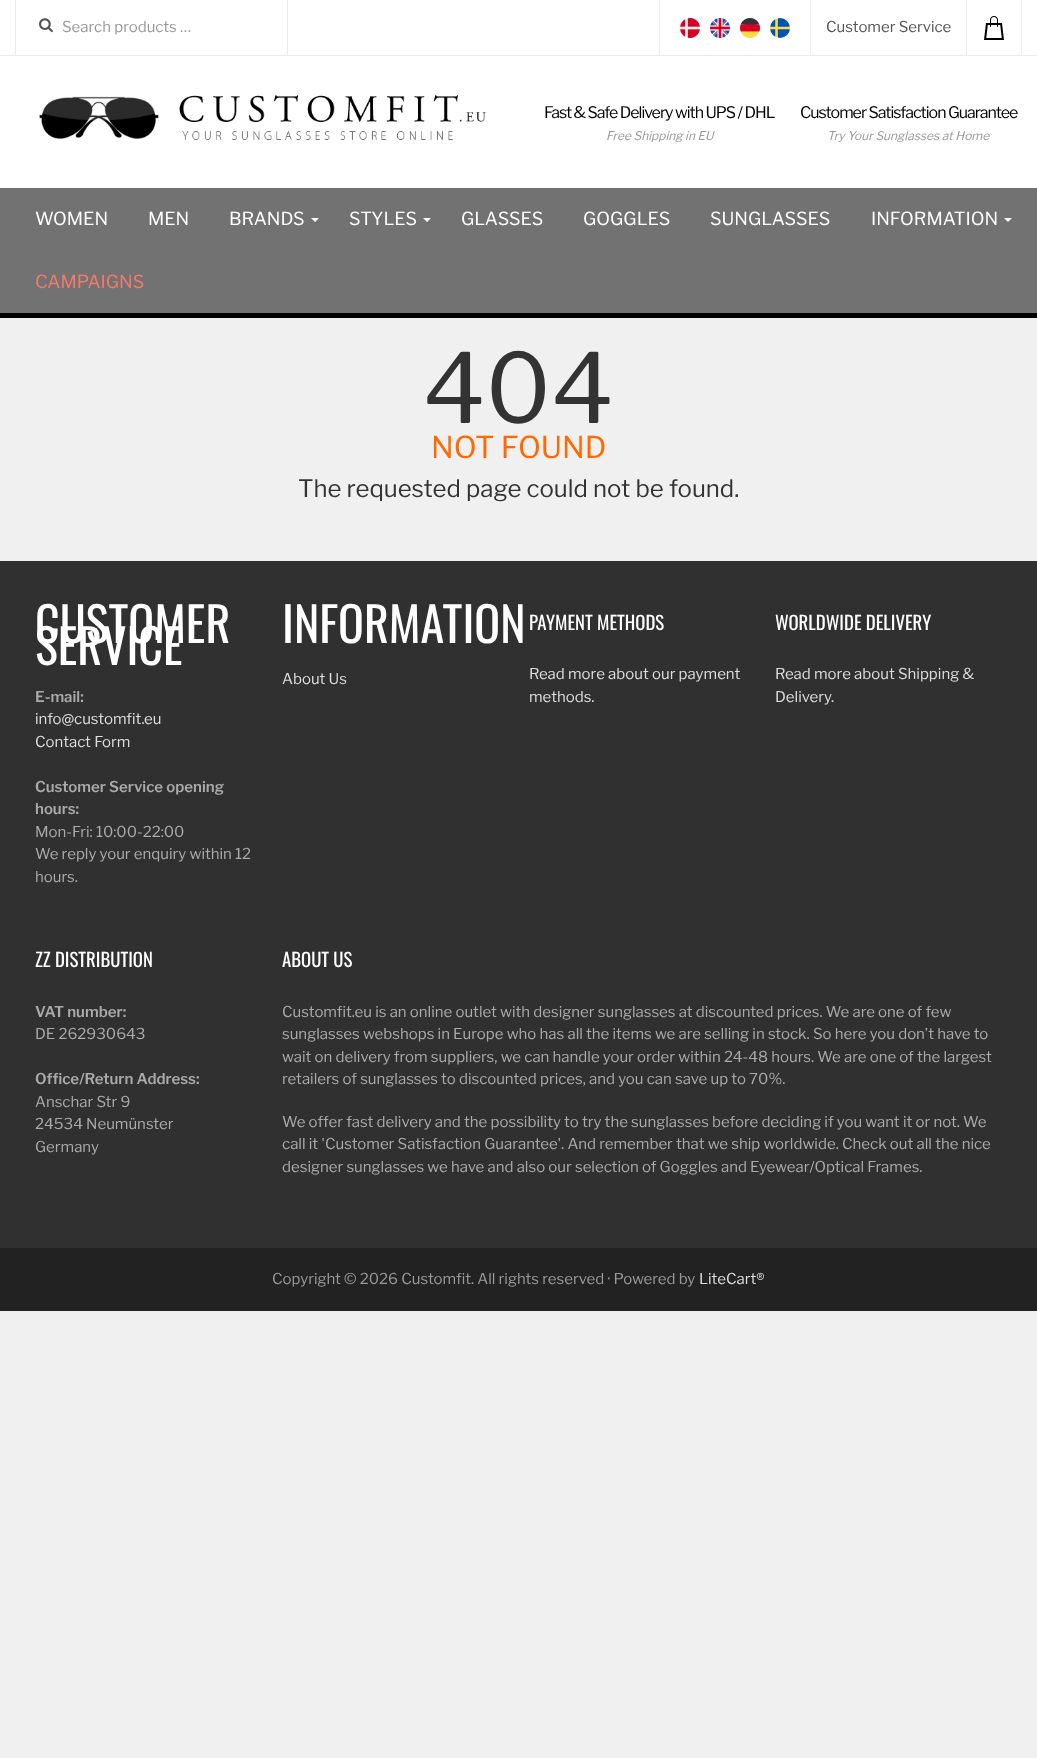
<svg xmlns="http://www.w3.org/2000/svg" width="1037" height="1758">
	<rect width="100%" height="100%" fill="#F0F0F0" />
	<rect x="0" y="0" width="1037" height="55" fill="#FFFFFF" />
	<rect x="0" y="55" width="1037" height="1" fill="#ECECEC" />
	<rect x="15" y="0" width="1" height="55" fill="#ECECEC" />
	<rect x="287" y="0" width="1" height="55" fill="#ECECEC" />
	<image x="39" y="18" width="14" height="15" href="assets/img1.png" />
	<text x="62" y="32" font-family="Libre Franklin" font-size="15" font-weight="100" fill="#999999">Search products …</text>
	<rect x="659" y="0" width="1" height="55" fill="#ECECEC" />
	<rect x="810" y="0" width="1" height="55" fill="#ECECEC" />
	<image x="680" y="18" width="20" height="20" href="assets/img2.png" />
	<image x="710" y="18" width="20" height="20" href="assets/img3.png" />
	<image x="740" y="18" width="20" height="20" href="assets/img4.png" />
	<image x="770" y="18" width="20" height="20" href="assets/img5.png" />
	<rect x="966" y="0" width="1" height="55" fill="#ECECEC" />
	<text x="826" y="32" font-family="Libre Franklin" font-size="15" font-weight="100" fill="#555555">Customer Service</text>
	<rect x="1021" y="0" width="1" height="55" fill="#ECECEC" />
	<image x="984" y="16" width="20" height="24" href="assets/img6.png" />
	<rect x="0" y="56" width="1037" height="132" fill="#FFFFFF" />
	<image x="39" y="94" width="447" height="46" href="assets/img7.png" />
	<text x="544" y="118" font-family="Libre Franklin" font-size="16" font-weight="100" letter-spacing="-1" fill="#000000">Fast &amp; Safe Delivery with UPS / DHL</text>
	<text x="606" y="140" font-family="Libre Franklin" font-size="12" font-weight="100" font-style="italic" fill="#999999">Free Shipping in EU</text>
	<text x="800" y="118" font-family="Libre Franklin" font-size="16" font-weight="100" letter-spacing="-1" fill="#000000">Customer Satisfaction Guarantee</text>
	<text x="827" y="140" font-family="Libre Franklin" font-size="12" font-weight="100" font-style="italic" fill="#999999">Try Your Sunglasses at Home</text>
	<rect x="0" y="188" width="1037" height="125" fill="#727272" />
	<rect x="0" y="313" width="1037" height="5" fill="#000000" />
	<g font-family="Libre Franklin" font-size="18" font-weight="100" fill="#FFFFFF">
		<text x="35" y="225">WOMEN</text>
		<text x="148" y="225">MEN</text>
		<text x="229" y="225">BRANDS</text>
	</g>
	<path d="M311 218H319L315 222Z" fill="#FFFFFF" />
	<text x="349" y="225" font-family="Libre Franklin" font-size="18" font-weight="100" fill="#FFFFFF">STYLES</text>
	<path d="M423 218H431L427 222Z" fill="#FFFFFF" />
	<g font-family="Libre Franklin" font-size="18" font-weight="100" fill="#FFFFFF">
		<text x="461" y="225">GLASSES</text>
		<text x="583" y="225">GOGGLES</text>
		<text x="710" y="225">SUNGLASSES</text>
		<text x="871" y="225">INFORMATION</text>
	</g>
	<path d="M1004 218H1012L1008 222Z" fill="#FFFFFF" />
	<text x="35" y="288" font-family="Libre Franklin" font-size="18" font-weight="100" fill="#F67A6A">CAMPAIGNS</text>
	<text x="423" y="423" font-family="Libre Franklin" font-size="96" font-weight="100" fill="#333333">404</text>
	<text x="431" y="458" font-family="Libre Franklin" font-size="30" font-weight="100" fill="#FF6900">NOT FOUND</text>
	<text x="298" y="497" font-family="Libre Franklin" font-size="24" font-weight="100" fill="#333333">The requested page could not be found.</text>
	<rect x="0" y="561" width="1037" height="687" fill="#303030" />
	<g font-family="Oswald" font-size="48" fill="#FFFFFF">
		<text x="35" y="643">CUSTOMER</text>
		<text x="35" y="665">SERVICE</text>
	</g>
	<text x="35" y="702" font-family="Libre Franklin" font-size="15" font-weight="600" fill="#AAAAAA">E-mail:</text>
	<g font-family="Libre Franklin" font-size="15" font-weight="100" fill="#DDDDDD">
		<text x="35" y="724">info@customfit.eu</text>
		<text x="35" y="747">Contact Form</text>
	</g>
	<g font-family="Libre Franklin" font-size="15" font-weight="600" fill="#AAAAAA">
		<text x="35" y="792">Customer Service opening</text>
		<text x="35" y="814">hours:</text>
	</g>
	<g font-family="Libre Franklin" font-size="15" font-weight="100" fill="#AAAAAA">
		<text x="35" y="837">Mon-Fri: 10:00-22:00</text>
		<text x="35" y="859">We reply your enquiry within 12</text>
		<text x="35" y="882">hours.</text>
	</g>
	<text x="282" y="643" font-family="Oswald" font-size="48" fill="#FFFFFF">INFORMATION</text>
	<text x="282" y="684" font-family="Libre Franklin" font-size="15" font-weight="100" fill="#DDDDDD">About Us</text>
	<text x="529" y="630" font-family="Oswald" font-size="18.75" fill="#FFFFFF">PAYMENT METHODS</text>
	<g font-family="Libre Franklin" font-size="15" font-weight="100" fill="#DDDDDD">
		<text x="529" y="679">Read more about our payment</text>
		<text x="529" y="702">methods.</text>
	</g>
	<text x="775" y="630" font-family="Oswald" font-size="18.75" fill="#FFFFFF">WORLDWIDE DELIVERY</text>
	<g font-family="Libre Franklin" font-size="15" font-weight="100" fill="#DDDDDD">
		<text x="775" y="679">Read more about Shipping &amp;</text>
		<text x="775" y="702">Delivery.</text>
	</g>
	<text x="35" y="967" font-family="Oswald" font-size="18.75" fill="#FFFFFF">ZZ DISTRIBUTION</text>
	<text x="35" y="1017" font-family="Libre Franklin" font-size="15" font-weight="600" fill="#AAAAAA">VAT number:</text>
	<text x="35" y="1039" font-family="Libre Franklin" font-size="15" font-weight="100" fill="#AAAAAA">DE 262930643</text>
	<text x="35" y="1084" font-family="Libre Franklin" font-size="15" font-weight="600" fill="#AAAAAA">Office/Return Address:</text>
	<g font-family="Libre Franklin" font-size="15" font-weight="100" fill="#AAAAAA">
		<text x="35" y="1107">Anschar Str 9</text>
		<text x="35" y="1129">24534 Neumünster</text>
		<text x="35" y="1152">Germany</text>
	</g>
	<text x="282" y="967" font-family="Oswald" font-size="18.75" fill="#FFFFFF">ABOUT US</text>
	<g font-family="Libre Franklin" font-size="15" font-weight="100" fill="#AAAAAA">
		<text x="282" y="1017">Customfit.eu is an online outlet with designer sunglasses at discounted prices. We are one of few</text>
		<text x="282" y="1039">sunglasses webshops in Europe who has all the items we are selling in stock. So here you don’t have to</text>
		<text x="282" y="1062">wait on delivery from suppliers, we can handle your order within 24-48 hours. We are one of the largest</text>
		<text x="282" y="1084">retailers of sunglasses to discounted prices, and you can save up to 70%.</text>
		<text x="282" y="1127">We offer fast delivery and the possibility to try the sunglasses before deciding if you want it or not. We</text>
		<text x="282" y="1149">call it 'Customer Satisfaction Guarantee'. And remember that we ship worldwide. Check out all the nice</text>
		<text x="282" y="1172">designer sunglasses we have and also our selection of Goggles and Eyewear/Optical Frames.</text>
	</g>
	<rect x="0" y="1248" width="1037" height="63" fill="#222222" />
	<text x="272" y="1284" font-family="Libre Franklin" font-size="15" font-weight="100" fill="#999999">Copyright © 2026 Customfit. All rights reserved · Powered by</text>
	<text x="699" y="1284" font-family="Libre Franklin" font-size="15" font-weight="100" fill="#DDDDDD">LiteCart®</text>
</svg>
